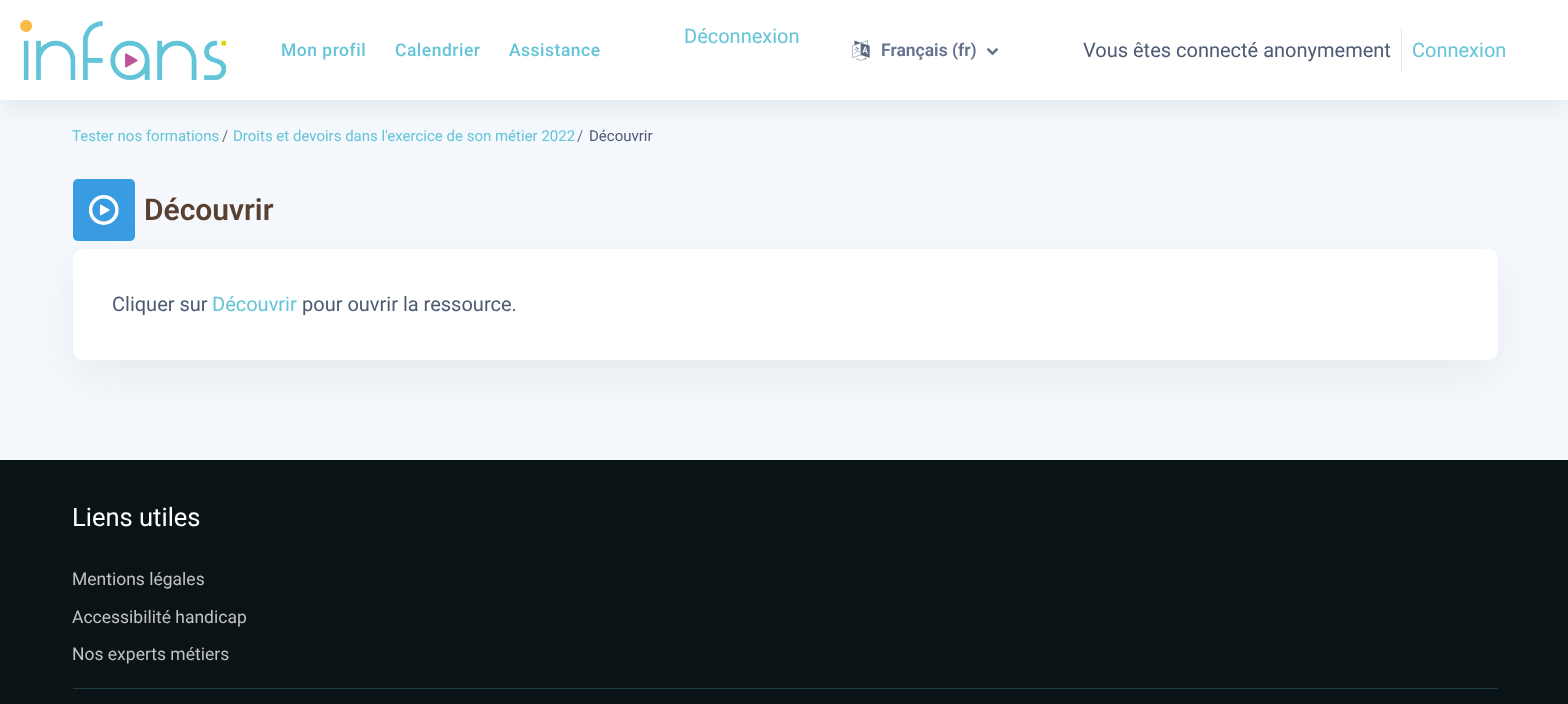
<svg xmlns="http://www.w3.org/2000/svg" width="1568" height="704">
	<rect width="100%" height="100%" fill="#F5F9FD" />
	<rect x="0" y="11" width="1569" height="100" fill="#5C6B79" fill-opacity="0.1" filter="blur(11px)" />
	<rect x="0" y="0" width="1568" height="100" fill="#FFFFFF" />
	<image x="20" y="20" width="207" height="60" href="assets/img1.png" />
	<g font-family="Roboto" font-size="17.5" font-weight="500" letter-spacing="0.5" fill="#64C4D8">
		<text x="281" y="56">Mon profil</text>
		<text x="395" y="56">Calendrier</text>
		<text x="509" y="56">Assistance</text>
	</g>
	<text x="684" y="43" font-family="Roboto" font-size="20" fill="#64C4D8">Déconnexion</text>
	<image x="852" y="40" width="18" height="21" href="assets/img2.png" />
	<text x="881" y="56" font-family="Roboto" font-size="17.5" font-weight="600" fill="#63718C">Français (fr)</text>
	<image x="986" y="48" width="13" height="8" href="assets/img3.png" />
	<text x="1083" y="57" font-family="Roboto" font-size="20" fill="#4C5A73">Vous êtes connecté anonymement</text>
	<rect x="1401" y="28" width="1" height="45" fill="#E2E7F0" />
	<text x="1412" y="57" font-family="Roboto" font-size="20" fill="#64C4D8">Connexion</text>
	<text x="72" y="141" font-family="Roboto" font-size="15" fill="#64C4D8">Tester nos formations</text>
	<text x="222" y="141" font-family="Roboto" font-size="15" fill="#6A737B">/</text>
	<text x="233" y="141" font-family="Roboto" font-size="15" fill="#64C4D8">Droits et devoirs dans l'exercice de son métier 2022</text>
	<text x="577" y="141" font-family="Roboto" font-size="15" fill="#6A737B">/</text>
	<text x="589" y="141" font-family="Roboto" font-size="15" fill="#4C5A73">Découvrir</text>
	<rect x="73" y="265" width="1425" height="111" rx="10" fill="#5C6B79" fill-opacity="0.1" filter="blur(23px)" />
	<rect x="73" y="179" width="62" height="62" rx="5" fill="#399BE2" />
	<image x="89" y="195" width="30" height="30" href="assets/img4.png" />
	<text x="144" y="220" font-family="Roboto" font-size="30" font-weight="600" fill="#594031">Découvrir</text>
	<rect x="73" y="249" width="1425" height="111" rx="10" fill="#FFFFFF" />
	<text x="112" y="311" font-family="Roboto" font-size="20" fill="#4C5A73">Cliquer sur</text>
	<text x="212" y="311" font-family="Roboto" font-size="20" fill="#64C4D8">Découvrir</text>
	<text x="302" y="311" font-family="Roboto" font-size="20" fill="#4C5A73">pour ouvrir la ressource.</text>
	<rect x="0" y="460" width="1568" height="244" fill="#0A1416" />
	<text x="72" y="526" font-family="Roboto" font-size="25.5" fill="#FFFFFF">Liens utiles</text>
	<g font-family="Roboto" font-size="17.5" fill="#C2C2C2">
		<text x="72" y="585">Mentions légales</text>
		<text x="72" y="623">Accessibilité handicap</text>
		<text x="72" y="660">Nos experts métiers</text>
	</g>
	<rect x="73" y="688" width="1425" height="1" fill="#1E3B41" />
</svg>
